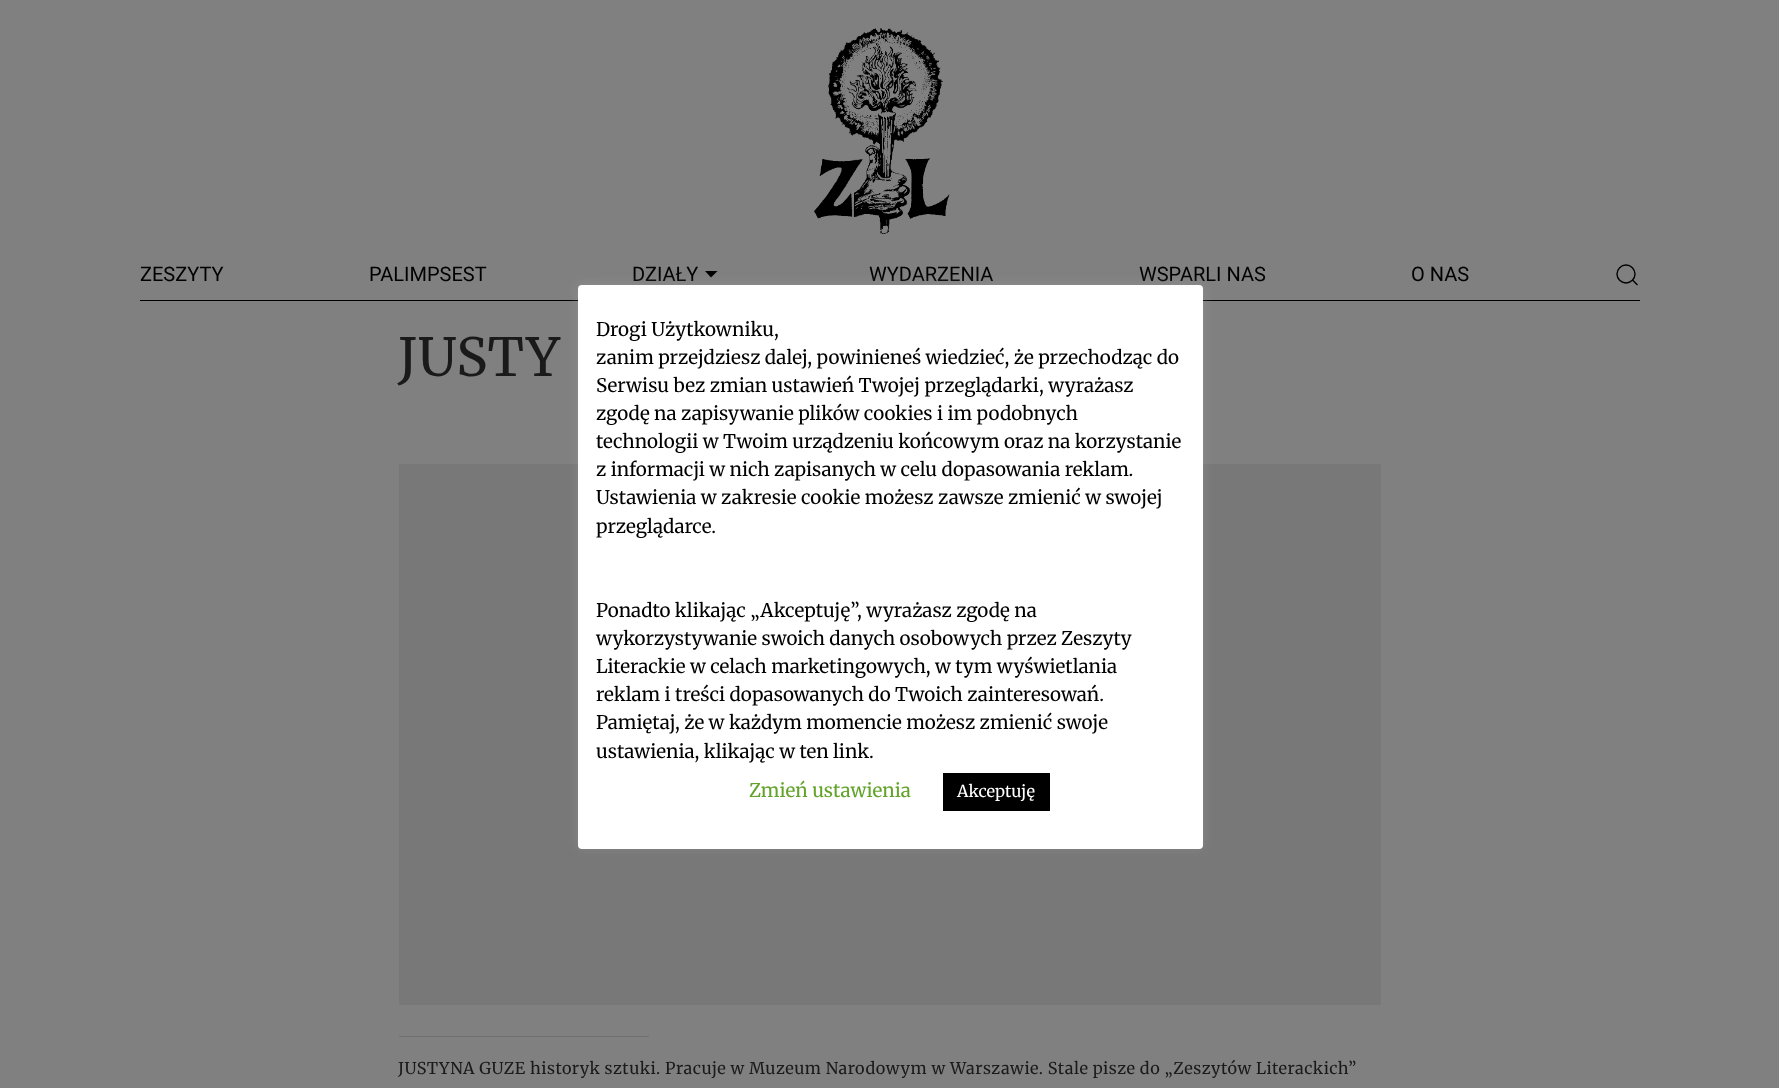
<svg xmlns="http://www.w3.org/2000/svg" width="1779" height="1088">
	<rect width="100%" height="100%" fill="#808080" />
	<image x="814" y="28" width="136" height="206" href="assets/img1.png" />
	<rect x="140" y="300" width="1500" height="1" fill="#000000" />
	<g font-family="Roboto" font-size="20" fill="#000000">
		<text x="140" y="281">ZESZYTY</text>
		<text x="369" y="281">PALIMPSEST</text>
		<text x="632" y="281">DZIAŁY</text>
	</g>
	<path d="M705 271H717.5L711 277.5Z" fill="#000000" />
	<g font-family="Roboto" font-size="20" fill="#000000">
		<text x="869" y="281">WYDARZENIA</text>
		<text x="1139" y="281">WSPARLI NAS</text>
		<text x="1411" y="281">O NAS</text>
	</g>
	<circle cx="1626" cy="274" r="9" fill="none" stroke="#000000" stroke-width="1.4" />
	<path d="M1632.5 280L1637.5 285Z" fill="none" stroke="#000000" stroke-width="1.4" />
	<rect x="399" y="464" width="982" height="541" fill="#787878" />
	<rect x="578" y="284" width="625" height="564" rx="4" fill="#ACABAB" fill-opacity="0.3" filter="blur(6px)" />
	<rect x="578" y="285" width="625" height="564" rx="4" fill="#FFFFFF" />
	<g font-family="Merriweather" font-size="18.75" fill="#000000">
		<text x="596" y="336">Drogi Użytkowniku,</text>
		<text x="596" y="364">zanim przejdziesz dalej, powinieneś wiedzieć, że przechodząc do</text>
		<text x="596" y="392">Serwisu bez zmian ustawień Twojej przeglądarki, wyrażasz</text>
		<text x="596" y="420">zgodę na zapisywanie plików cookies i im podobnych</text>
		<text x="596" y="448">technologii w Twoim urządzeniu końcowym oraz na korzystanie</text>
		<text x="596" y="476">z informacji w nich zapisanych w celu dopasowania reklam.</text>
		<text x="596" y="504">Ustawienia w zakresie cookie możesz zawsze zmienić w swojej</text>
		<text x="596" y="533">przeglądarce.</text>
		<text x="596" y="617">Ponadto klikając „Akceptuję”, wyrażasz zgodę na</text>
		<text x="596" y="645">wykorzystywanie swoich danych osobowych przez Zeszyty</text>
		<text x="596" y="673">Literackie w celach marketingowych, w tym wyświetlania</text>
		<text x="596" y="701">reklam i treści dopasowanych do Twoich zainteresowań.</text>
		<text x="596" y="729">Pamiętaj, że w każdym momencie możesz zmienić swoje</text>
		<text x="596" y="758">ustawienia, klikając w ten link.</text>
	</g>
	<text x="749" y="797" font-family="Merriweather" font-size="18.75" fill="#62A329">Zmień ustawienia</text>
	<rect x="943" y="773" width="107" height="38" fill="#000000" />
	<text x="957" y="797" font-family="Merriweather" font-size="16.25" fill="#FFFFFF">Akceptuję</text>
	<text x="398" y="376" font-family="Merriweather" font-size="52.5" letter-spacing="0.48" fill="#1A1A1A">JUSTY</text>
	<rect x="399" y="1036" width="250" height="1" fill="#6F6F6F" />
	<text x="398" y="1074" font-family="Merriweather" font-size="16.25" letter-spacing="0.48" fill="#1A1A1A">JUSTYNA GUZE historyk sztuki. Pracuje w Muzeum Narodowym w Warszawie. Stale pisze do „Zeszytów Literackich”</text>
</svg>
